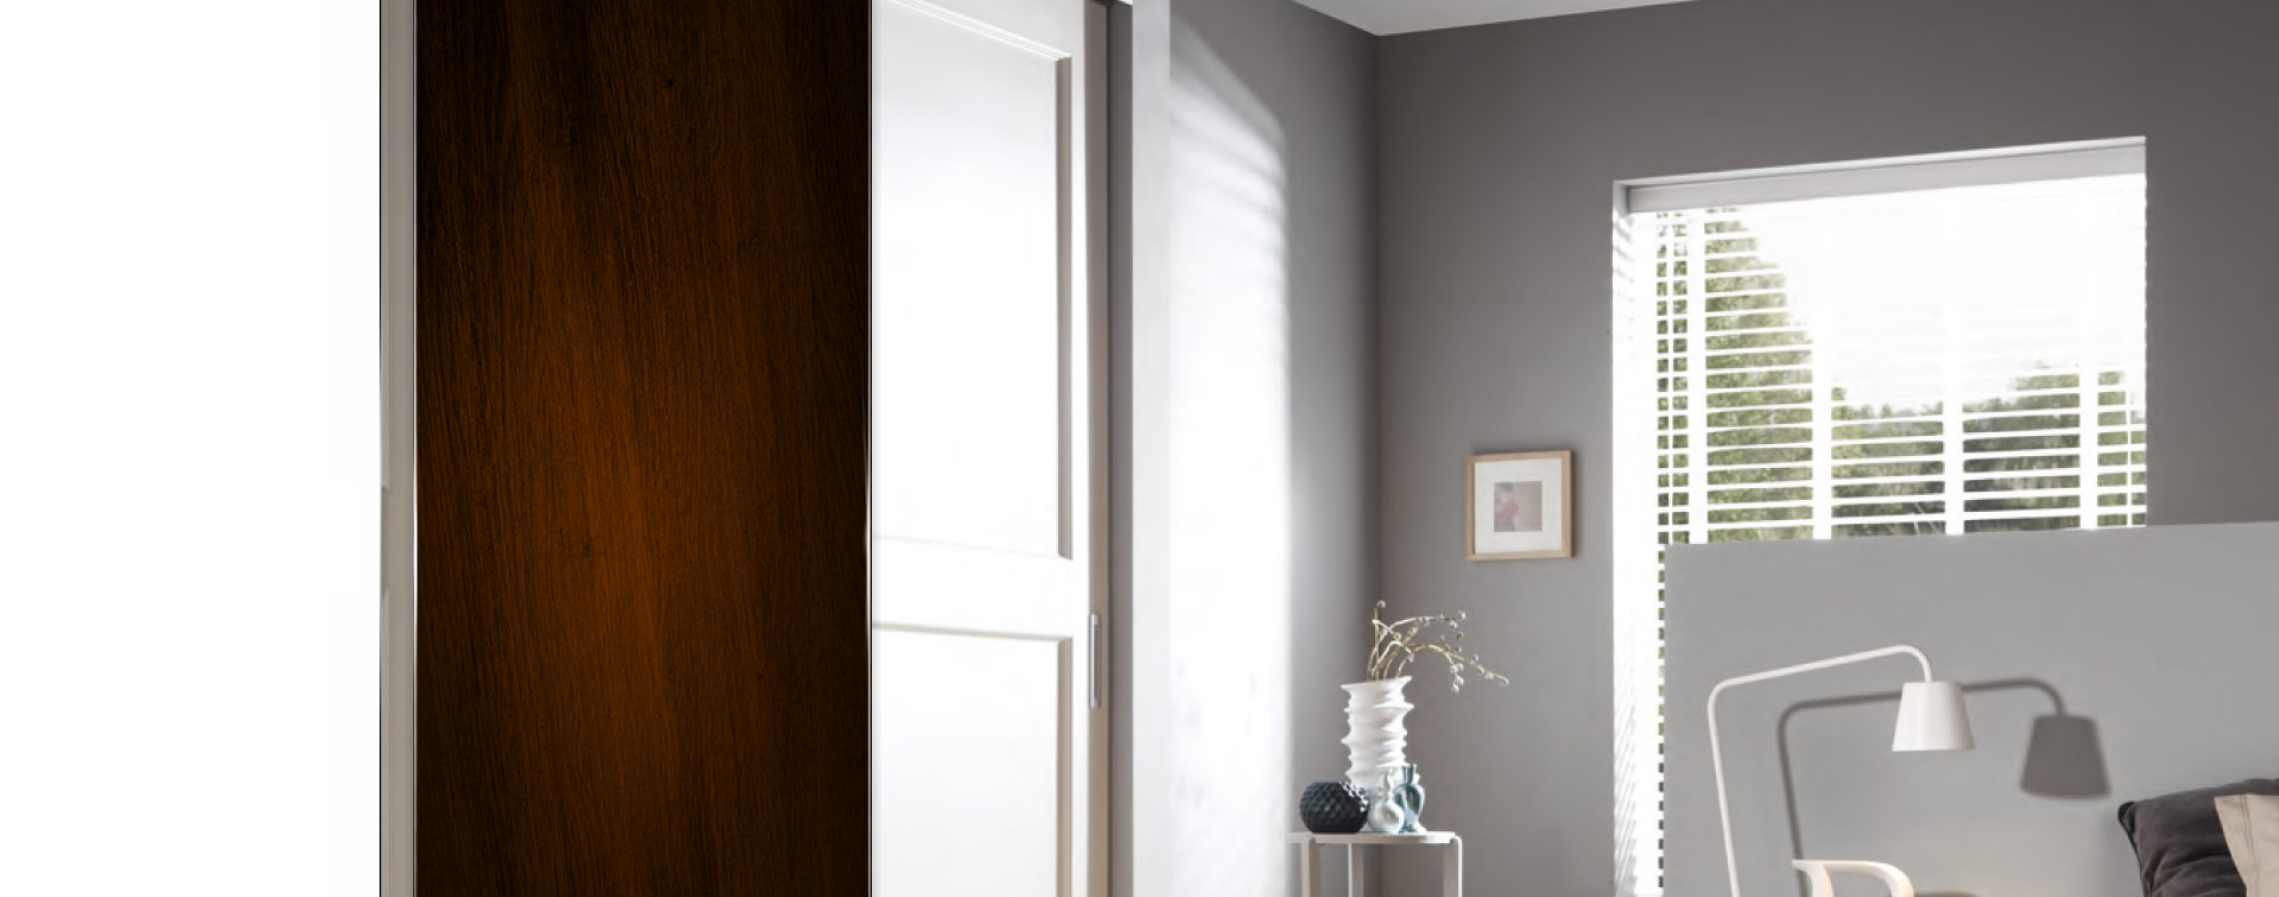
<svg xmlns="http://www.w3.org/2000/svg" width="2279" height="897">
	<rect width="100%" height="100%" fill="#FFFFFF" />
	<image x="0" y="0" width="2279" height="897" href="assets/img1.png" />
	<image x="0" y="0" width="390" height="897" href="assets/img2.png" />
	<image x="413" y="0" width="459" height="897" href="assets/img4.png" />
	<image x="405" y="0" width="476" height="897" href="assets/img3.png" />
	<image x="413" y="0" width="458" height="897" href="assets/img5.png" />
</svg>
